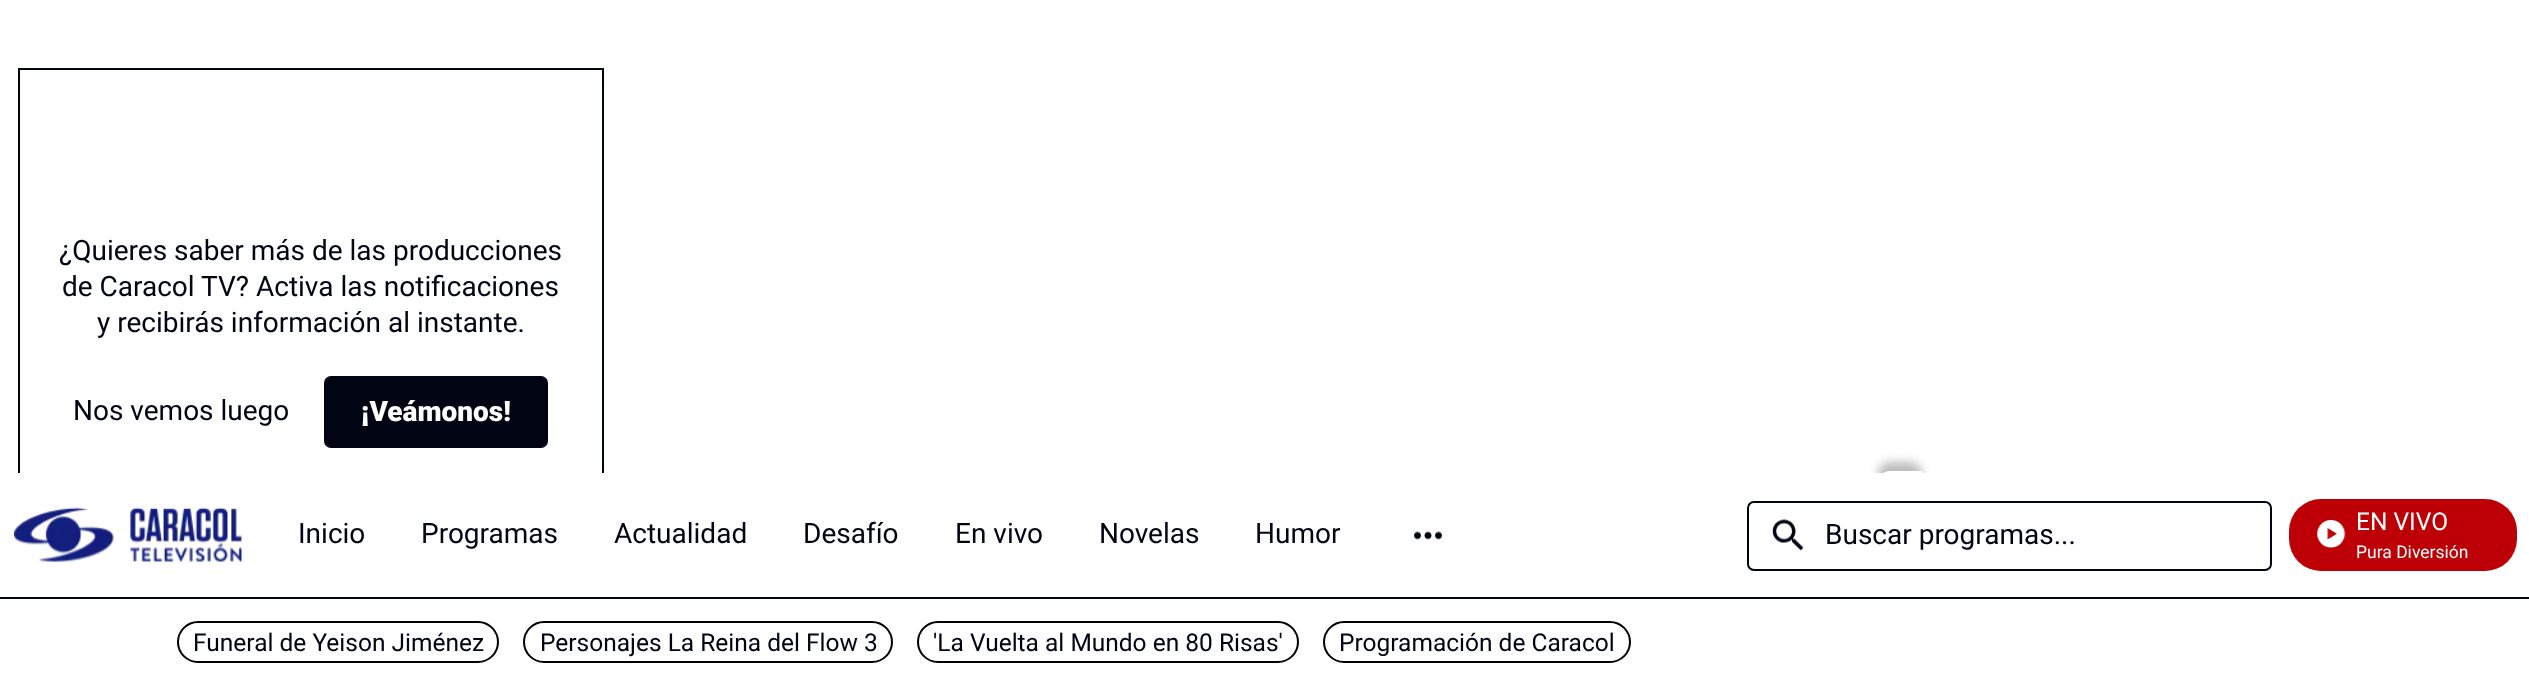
<svg xmlns="http://www.w3.org/2000/svg" width="2529" height="675">
	<rect width="100%" height="100%" fill="#FFFFFF" />
	<rect x="19" y="69" width="584" height="413" fill="none" stroke="#000413" stroke-width="2" />
	<g font-family="Roboto" font-size="28" fill="#000413">
		<text x="59" y="260">¿Quieres saber más de las producciones</text>
		<text x="62" y="296">de Caracol TV? Activa las notificaciones</text>
		<text x="97" y="332">y recibirás información al instante.</text>
		<text x="73" y="420">Nos vemos luego</text>
	</g>
	<rect x="325" y="377" width="222" height="70" rx="6" fill="#000413" stroke="#000413" stroke-width="2" />
	<text x="361" y="421" font-family="Roboto" font-size="28" font-weight="900" fill="#FFFFFF">¡Veámonos!</text>
	<rect x="1878" y="462" width="44" height="44" rx="12" fill="#212121" fill-opacity="0.3" filter="blur(5px)" />
	<path d="M1890 471H1922V515H1878V483C1878 476.5 1883.5 471 1890 471Z" fill="#FFFFFF" />
	<rect x="18" y="473" width="1913" height="37" fill="#FFFFFF" />
	<rect x="0" y="597" width="2529" height="2" fill="#000413" />
	<image x="14" y="507" width="228" height="55" href="assets/img1.png" />
	<g font-family="Roboto" font-size="28" fill="#000413">
		<text x="298" y="543">Inicio</text>
		<text x="421" y="543">Programas</text>
		<text x="614" y="543">Actualidad</text>
		<text x="803" y="543">Desafío</text>
		<text x="955" y="543">En vivo</text>
		<text x="1099" y="543">Novelas</text>
		<text x="1255" y="543">Humor</text>
	</g>
	<image x="1414" y="531" width="28" height="9" href="assets/img2.png" />
	<rect x="1748" y="502" width="523" height="68" rx="6" fill="none" stroke="#000413" stroke-width="2" />
	<image x="1772" y="519" width="32" height="32" href="assets/img3.png" />
	<text x="1825" y="544" font-family="Roboto" font-size="28" fill="#000413">Buscar programas...</text>
	<rect x="2289" y="499" width="228" height="72" rx="32" fill="#BD0005" />
	<image x="2317" y="520" width="29" height="28" href="assets/img4.png" />
	<text x="2356" y="530" font-family="Roboto" font-size="24.5" fill="#FFFFFF">EN VIVO</text>
	<text x="2356" y="558" font-family="Roboto" font-size="17.5" fill="#FFFFFF">Pura Diversión</text>
	<rect x="178" y="622" width="320" height="40" rx="20" fill="none" stroke="#000000" stroke-width="2" />
	<text x="193" y="651" font-family="Roboto" font-size="24.5" fill="#000413">Funeral de Yeison Jiménez</text>
	<rect x="524" y="622" width="368" height="40" rx="20" fill="none" stroke="#000000" stroke-width="2" />
	<text x="540" y="651" font-family="Roboto" font-size="24.5" fill="#000413">Personajes La Reina del Flow 3</text>
	<rect x="918" y="622" width="380" height="40" rx="20" fill="none" stroke="#000000" stroke-width="2" />
	<text x="933" y="651" font-family="Roboto" font-size="24.5" fill="#000413">'La Vuelta al Mundo en 80 Risas'</text>
	<rect x="1324" y="622" width="306" height="40" rx="20" fill="none" stroke="#000000" stroke-width="2" />
	<text x="1339" y="651" font-family="Roboto" font-size="24.5" fill="#000413">Programación de Caracol</text>
</svg>
